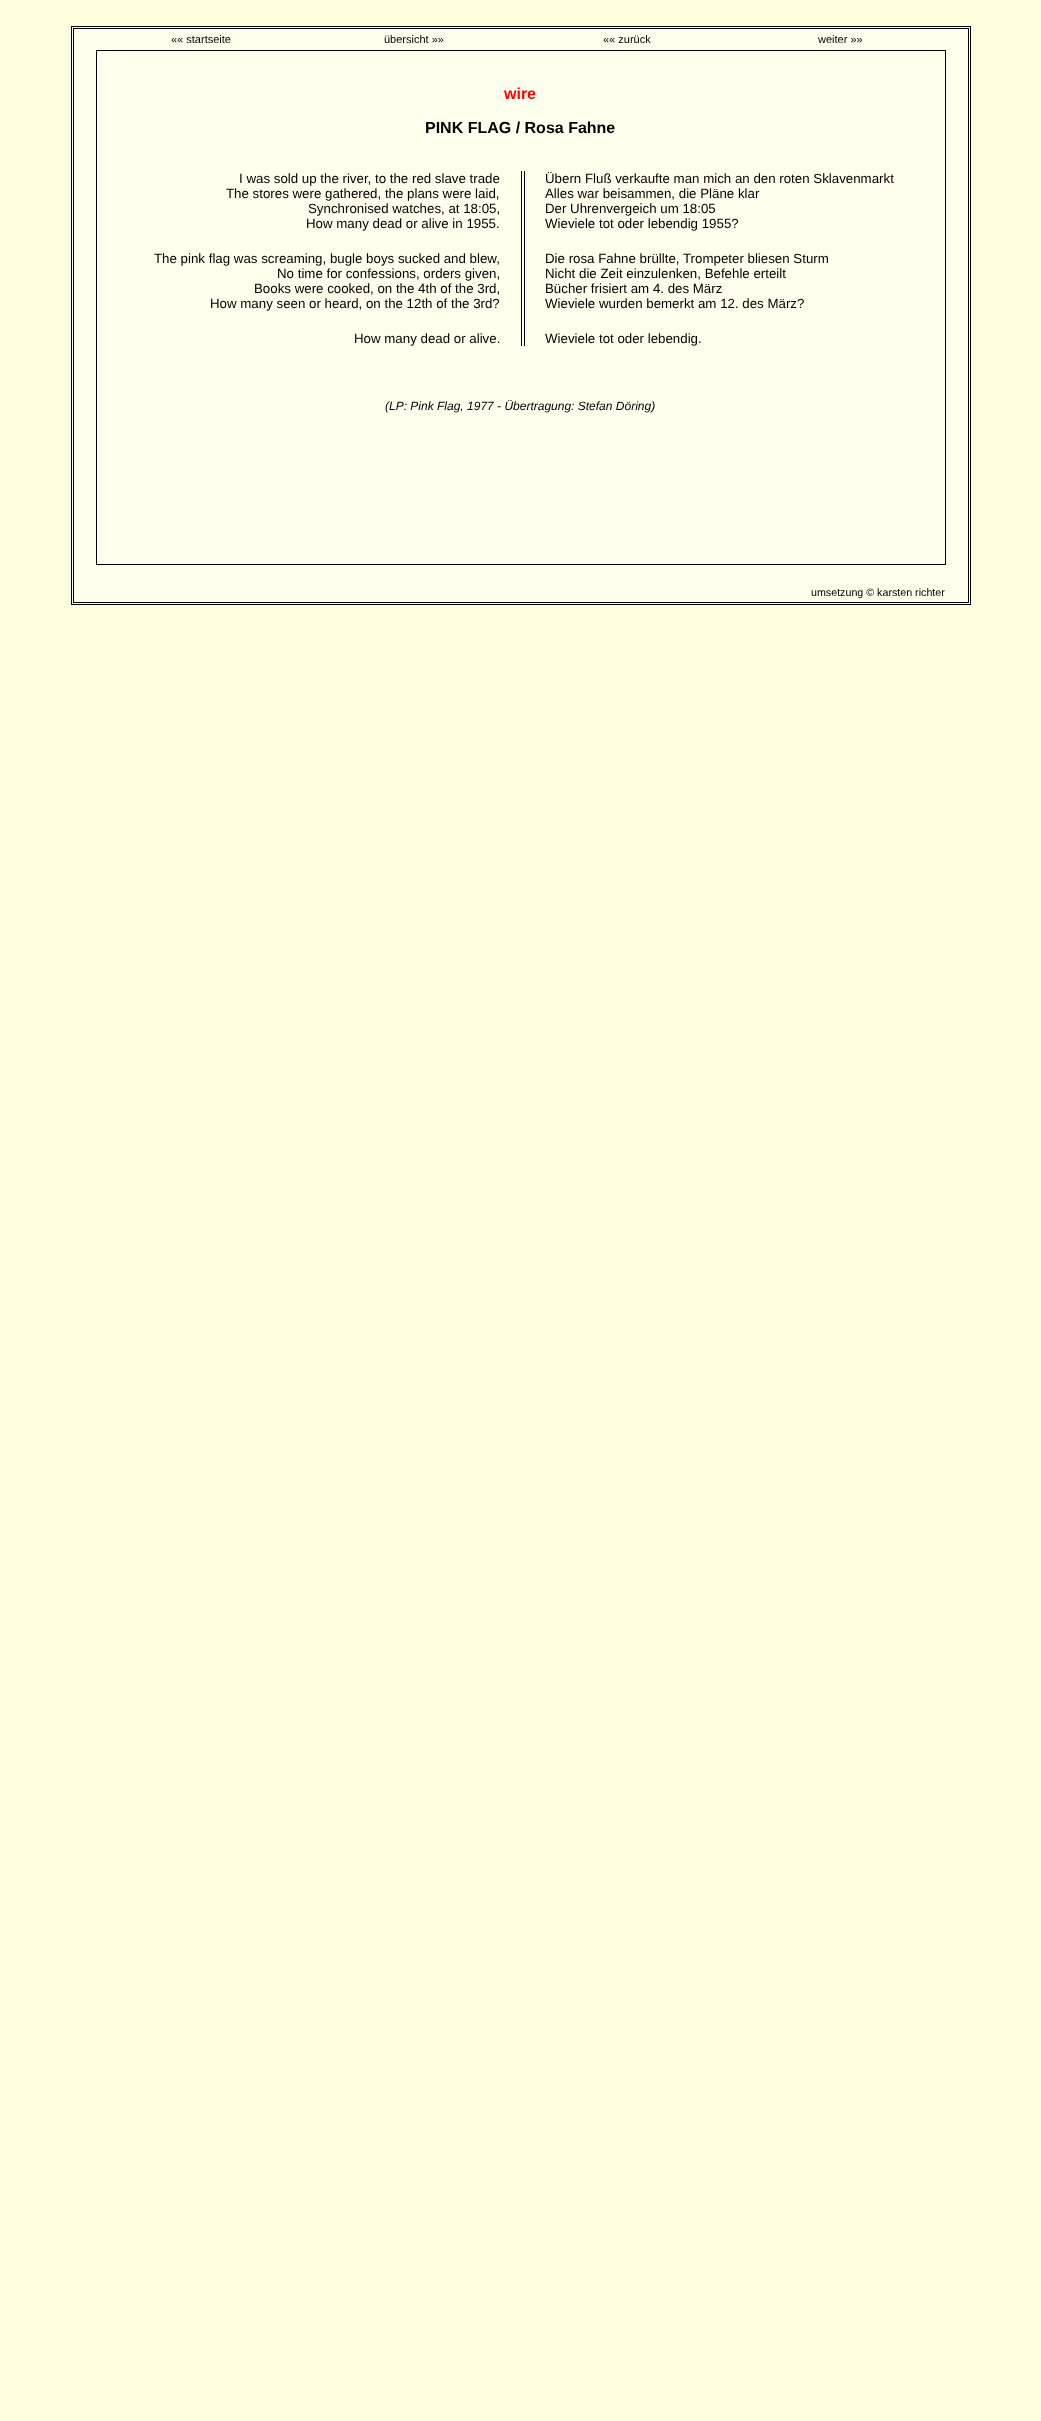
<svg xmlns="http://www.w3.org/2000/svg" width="1041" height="2421">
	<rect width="100%" height="100%" fill="#FFFFDD" />
	<rect x="71" y="26" width="900" height="579" fill="#000000" />
	<rect x="72" y="27" width="898" height="577" fill="#FFFFEE" />
	<rect x="73" y="28" width="896" height="575" fill="#000000" />
	<rect x="74" y="29" width="894" height="573" fill="#FFFFEE" />
	<g font-family="Liberation Sans" font-size="11" fill="#000000">
		<text x="171" y="43">«« startseite</text>
		<text x="384" y="43">übersicht »»</text>
		<text x="603" y="43">«« zurück</text>
		<text x="818" y="43">weiter »»</text>
	</g>
	<rect x="96" y="50" width="850" height="515" fill="#000000" />
	<rect x="97" y="51" width="848" height="513" fill="#FFFFEE" />
	<text x="504" y="99" font-family="Liberation Sans" font-size="16" font-weight="700" fill="#FF0000">wire</text>
	<text x="425" y="133" font-family="Liberation Sans" font-size="16" font-weight="700" fill="#000000">PINK FLAG / Rosa Fahne</text>
	<g font-family="Liberation Sans" font-size="13.3" fill="#000000">
		<text x="239" y="183">I was sold up the river, to the red slave trade</text>
		<text x="226" y="198">The stores were gathered, the plans were laid,</text>
		<text x="308" y="213">Synchronised watches, at 18:05,</text>
		<text x="306" y="228">How many dead or alive in 1955.</text>
	</g>
	<rect x="521" y="171" width="1" height="175" fill="#000000" />
	<rect x="524" y="171" width="1" height="175" fill="#000000" />
	<g font-family="Liberation Sans" font-size="13.3" fill="#000000">
		<text x="545" y="183">Übern Fluß verkaufte man mich an den roten Sklavenmarkt</text>
		<text x="545" y="198">Alles war beisammen, die Pläne klar</text>
		<text x="545" y="213">Der Uhrenvergeich um 18:05</text>
		<text x="545" y="228">Wieviele tot oder lebendig 1955?</text>
		<text x="154" y="263">The pink flag was screaming, bugle boys sucked and blew,</text>
		<text x="277" y="278">No time for confessions, orders given,</text>
		<text x="254" y="293">Books were cooked, on the 4th of the 3rd,</text>
		<text x="210" y="308">How many seen or heard, on the 12th of the 3rd?</text>
		<text x="545" y="263">Die rosa Fahne brüllte, Trompeter bliesen Sturm</text>
		<text x="545" y="278">Nicht die Zeit einzulenken, Befehle erteilt</text>
		<text x="545" y="293">Bücher frisiert am 4. des März</text>
		<text x="545" y="308">Wieviele wurden bemerkt am 12. des März?</text>
		<text x="354" y="343">How many dead or alive.</text>
		<text x="545" y="343">Wieviele tot oder lebendig.</text>
	</g>
	<text x="385" y="410" font-family="Liberation Sans" font-size="12" font-style="italic" fill="#000000">(LP: Pink Flag, 1977 - Übertragung: Stefan Döring)</text>
	<text x="811" y="596" font-family="Liberation Sans" font-size="10.7" fill="#000000">umsetzung © karsten richter</text>
</svg>
